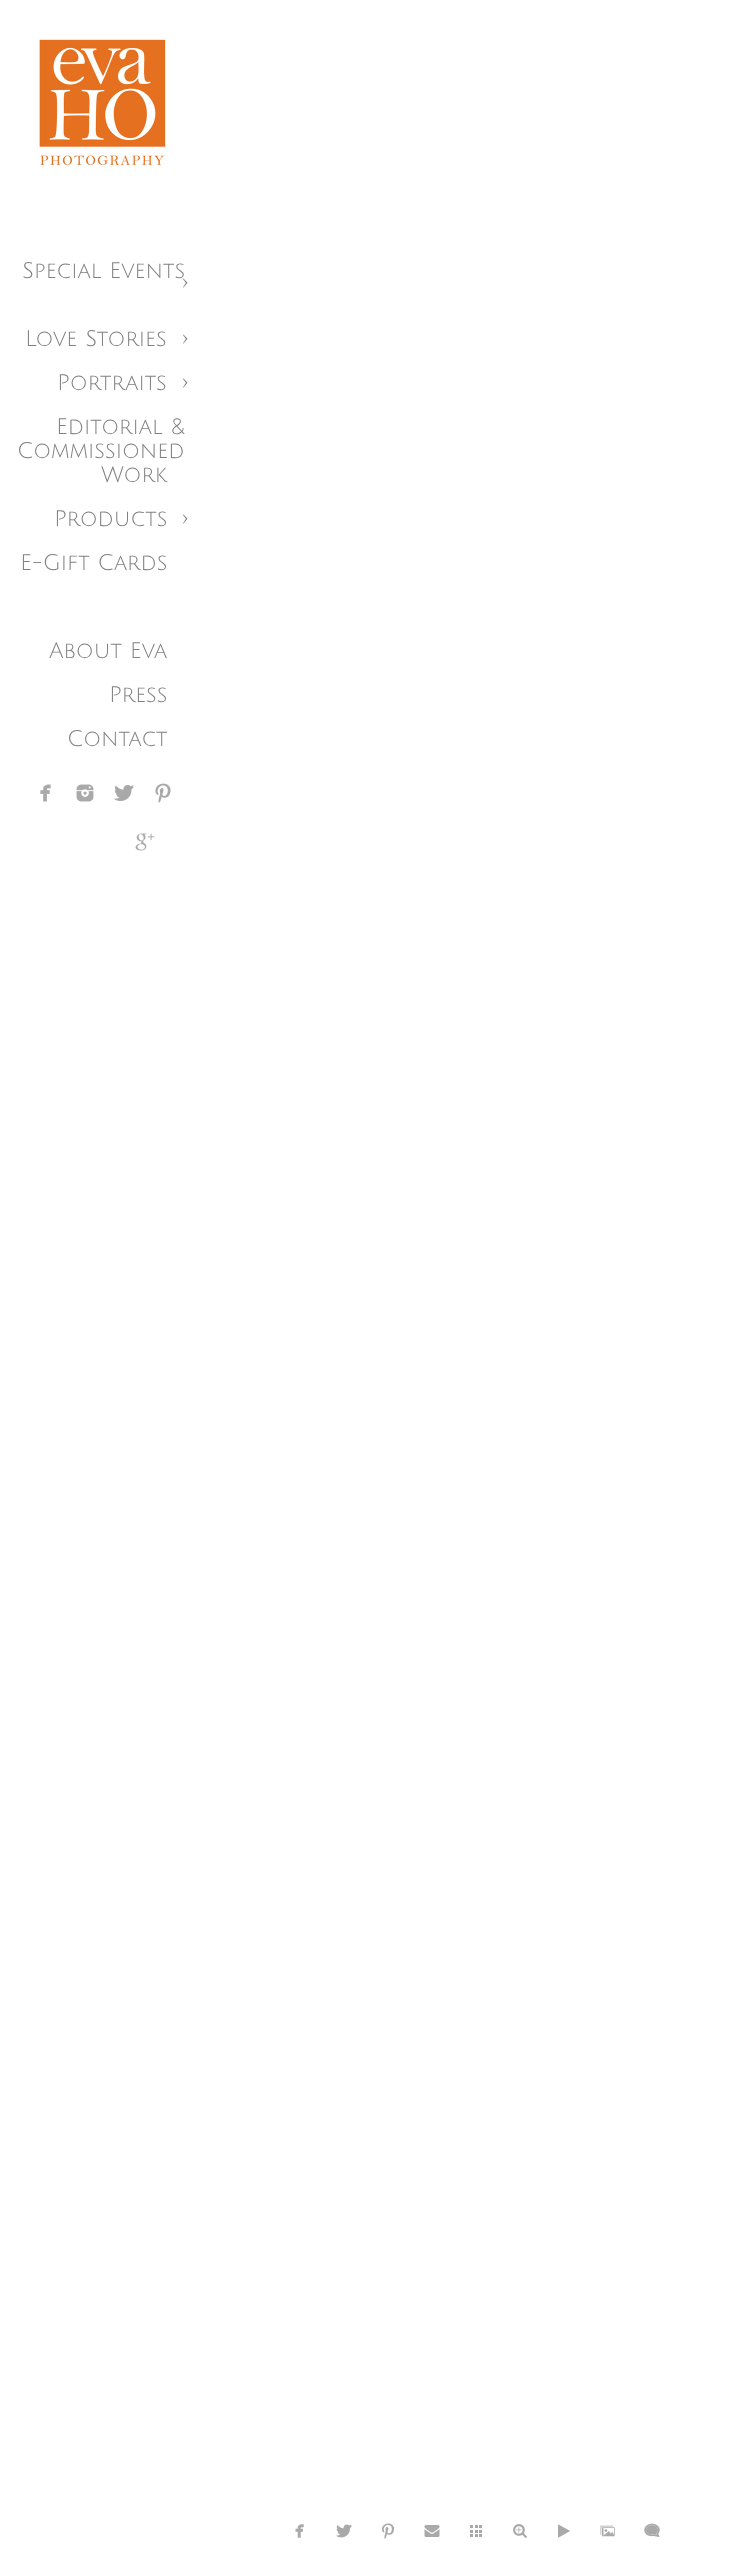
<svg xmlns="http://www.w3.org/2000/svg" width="731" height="2558">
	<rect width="100%" height="100%" fill="#FFFFFF" />
	<image x="37" y="37" width="131" height="129" href="assets/img1.png" />
	<text x="22" y="278" font-family="Julius Sans One" font-size="22" fill="#808080">Special Events</text>
	<image x="182" y="278" width="6" height="10" href="assets/img2.png" />
	<text x="25" y="346" font-family="Julius Sans One" font-size="22" fill="#808080">Love Stories</text>
	<image x="182" y="334" width="6" height="10" href="assets/img2.png" />
	<text x="57" y="390" font-family="Julius Sans One" font-size="22" fill="#808080">Portraits</text>
	<image x="182" y="378" width="6" height="10" href="assets/img2.png" />
	<g font-family="Julius Sans One" font-size="22" fill="#808080">
		<text x="56" y="434">Editorial &amp;</text>
		<text x="17" y="458">Commissioned</text>
		<text x="101" y="482">Work</text>
		<text x="54" y="526">Products</text>
	</g>
	<image x="182" y="514" width="6" height="10" href="assets/img2.png" />
	<g font-family="Julius Sans One" font-size="22" fill="#808080">
		<text x="20" y="570">E-Gift Cards</text>
		<text x="49" y="658">About Eva</text>
		<text x="109" y="702">Press</text>
		<text x="67" y="746">Contact</text>
	</g>
	<image x="40" y="784" width="11" height="18" href="assets/img3.png" />
	<image x="76" y="784" width="18" height="18" href="assets/img4.png" />
	<image x="114" y="785" width="20" height="16" href="assets/img5.png" />
	<image x="155" y="783" width="16" height="20" href="assets/img6.png" />
	<image x="135" y="833" width="20" height="18" href="assets/img7.png" />
	<image x="295" y="2524" width="9" height="14" href="assets/img8.png" />
	<image x="336" y="2524" width="16" height="14" href="assets/img9.png" />
	<image x="382" y="2523" width="12" height="16" href="assets/img10.png" />
	<image x="424" y="2525" width="16" height="12" href="assets/img11.png" />
	<image x="470" y="2525" width="12" height="12" href="assets/img12.png" />
	<image x="513" y="2524" width="14" height="14" href="assets/img13.png" />
	<image x="558" y="2524" width="12" height="14" href="assets/img14.png" />
	<image x="600" y="2525" width="15" height="12" href="assets/img15.png" />
	<image x="644" y="2523" width="16" height="15" href="assets/img16.png" />
</svg>
